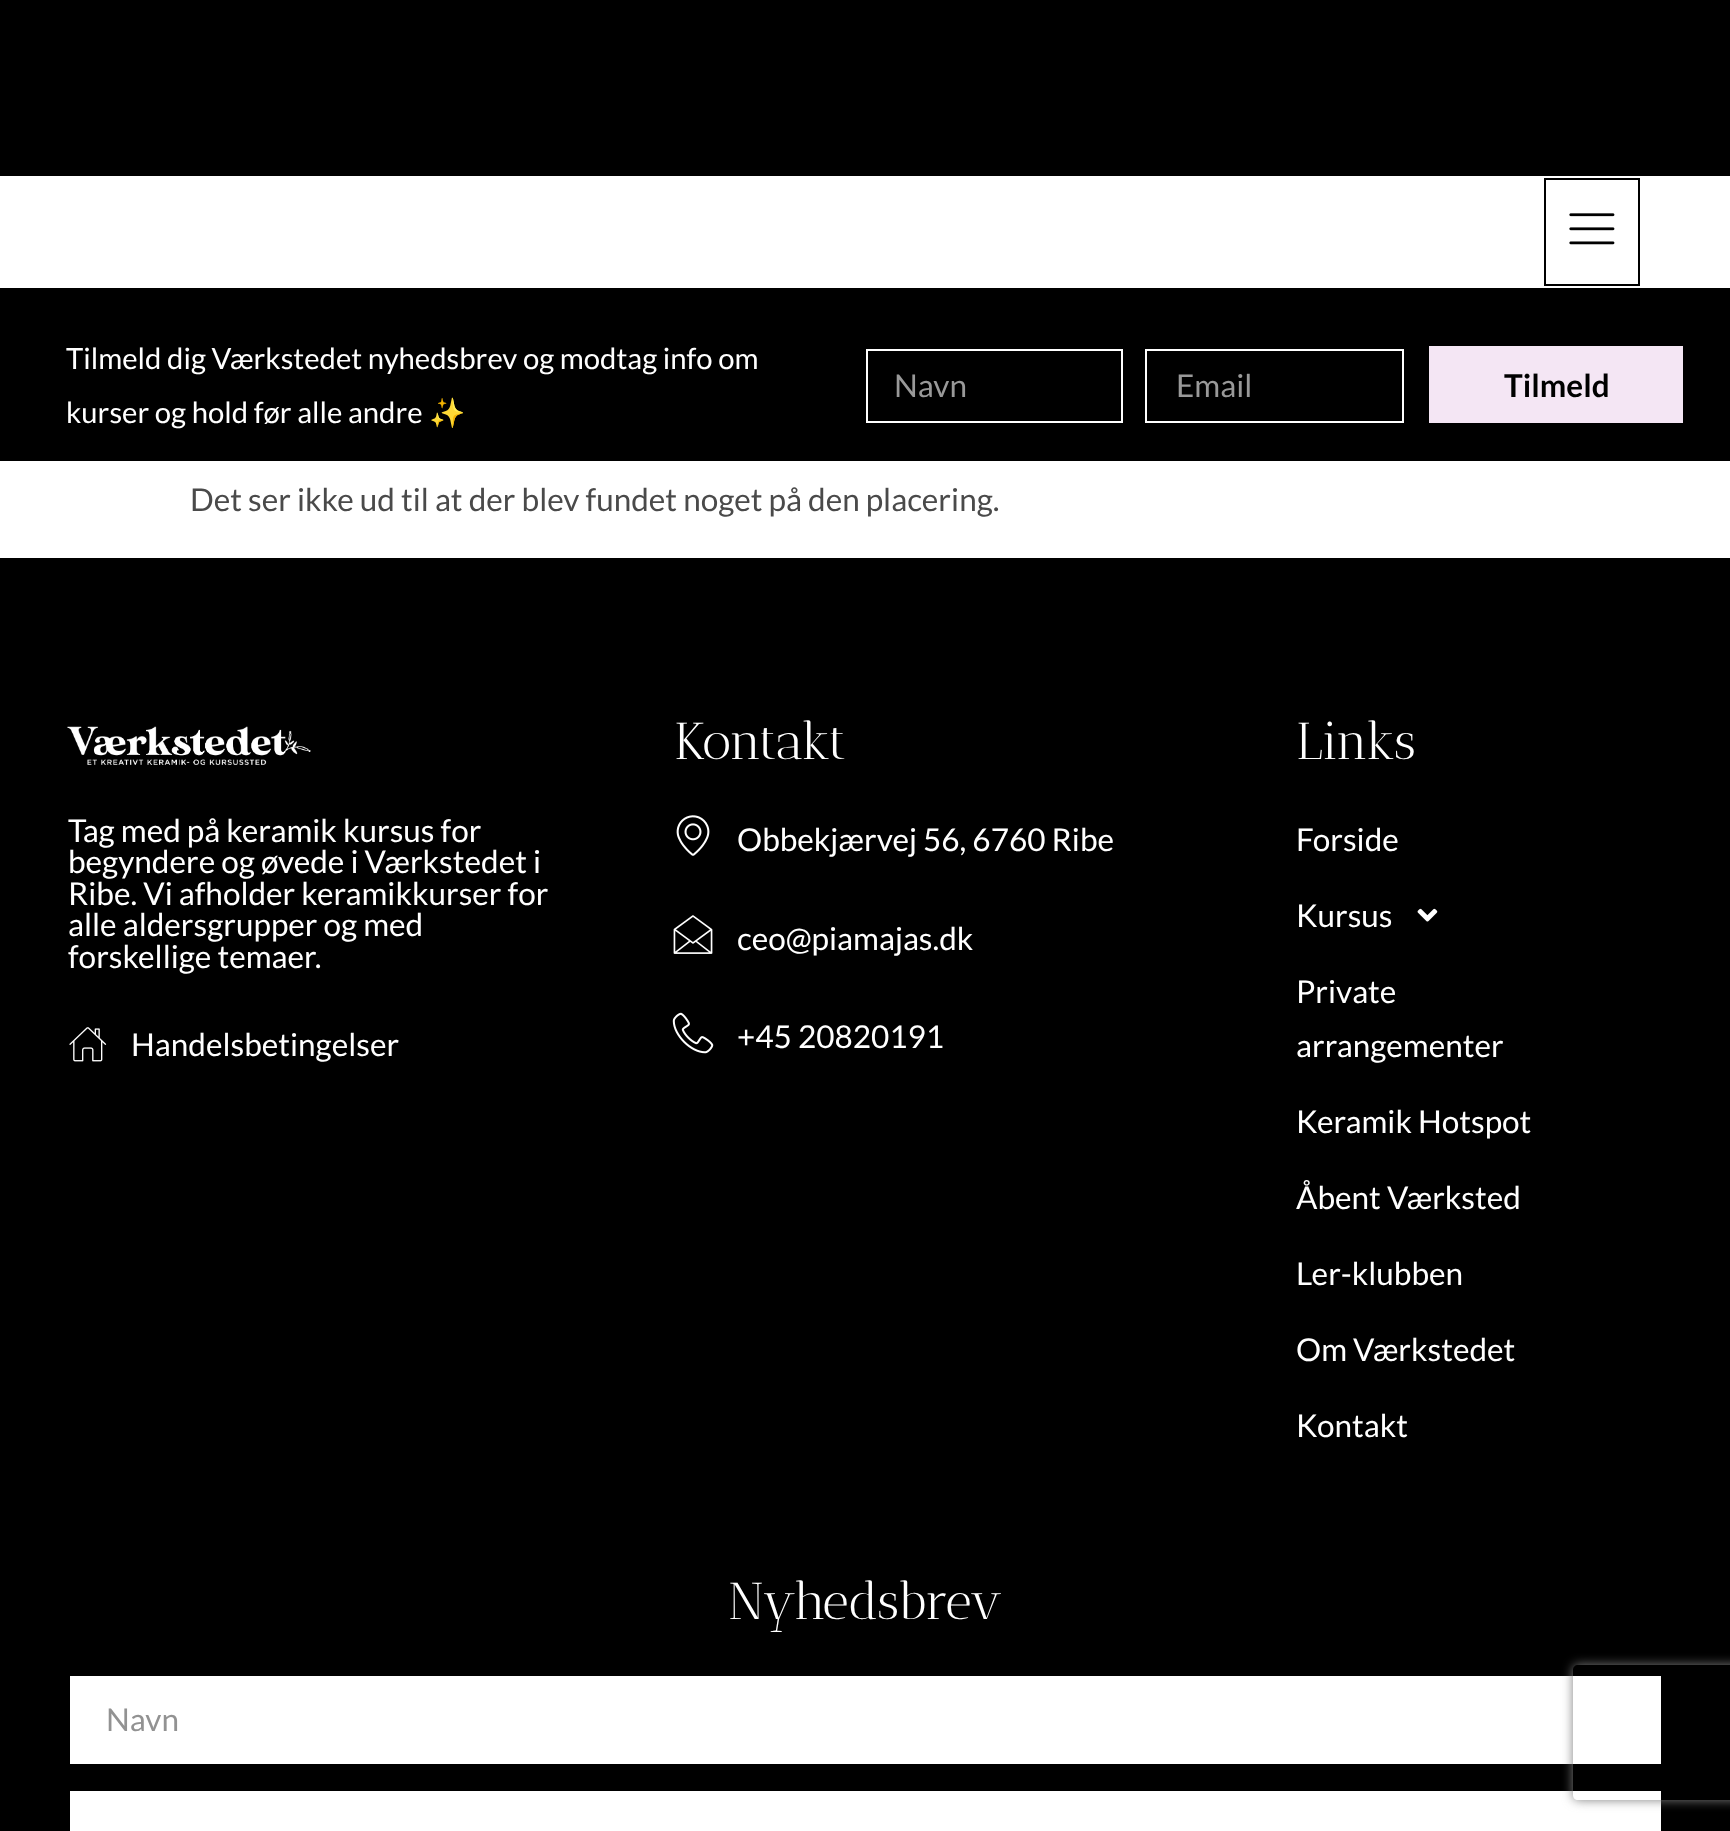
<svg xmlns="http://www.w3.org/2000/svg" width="1730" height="1831">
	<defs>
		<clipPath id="clip1"><path d="M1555 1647H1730V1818H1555ZM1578 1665H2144C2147 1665 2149 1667 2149 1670V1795C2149 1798 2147 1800 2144 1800H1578C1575 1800 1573 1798 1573 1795V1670C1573 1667 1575 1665 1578 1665Z" clip-rule="evenodd" /></clipPath>
	</defs>
	<rect width="100%" height="100%" fill="#FFFFFF" />
	<rect x="0" y="0" width="1730" height="461" fill="#000000" />
	<rect x="0" y="176" width="1730" height="112" fill="#FFFFFF" />
	<rect x="1545" y="179" width="94" height="106" fill="none" stroke="#000000" stroke-width="2" />
	<image x="1569" y="213" width="46" height="32" href="assets/img1.png" />
	<g font-family="Lato" font-size="29.25" fill="#FFFFFF">
		<text x="66" y="369">Tilmeld dig Værkstedet nyhedsbrev og modtag info om</text>
		<text x="66" y="423">kurser og hold før alle andre</text>
	</g>
	<text x="429" y="423" font-family="Noto Color Emoji" font-size="29.25" fill="#FFFFFF">✨</text>
	<rect x="867" y="350" width="255" height="72" fill="none" stroke="#FFFFFF" stroke-width="2" />
	<text x="894" y="397" font-family="Lato" font-size="31.5" fill="#999999">Navn</text>
	<rect x="1146" y="350" width="257" height="72" fill="none" stroke="#FFFFFF" stroke-width="2" />
	<text x="1176" y="397" font-family="Lato" font-size="31.5" fill="#999999">Email</text>
	<rect x="1429" y="346" width="254" height="77" fill="#F4E6F4" />
	<text x="1504" y="397" font-family="Lato" font-size="31.5" font-weight="700" fill="#000000">Tilmeld</text>
	<text x="190" y="511" font-family="Lato" font-size="31.5" fill="#4A4A4A">Det ser ikke ud til at der blev fundet noget på den placering.</text>
	<rect x="0" y="558" width="1730" height="1273" fill="#000000" />
	<image x="67" y="726" width="244" height="39" href="assets/img2.png" />
	<g font-family="Lato" font-size="31.5" fill="#FFFFFF">
		<text x="68" y="842">Tag med på keramik kursus for</text>
		<text x="68" y="873">begyndere og øvede i Værkstedet i</text>
		<text x="68" y="905">Ribe. Vi afholder keramikkurser for</text>
		<text x="68" y="936">alle aldersgrupper og med</text>
		<text x="68" y="968">forskellige temaer.</text>
	</g>
	<image x="69" y="1027" width="38" height="35" href="assets/img3.png" />
	<text x="131" y="1056" font-family="Lato" font-size="31.5" fill="#FFFFFF">Handelsbetingelser</text>
	<text x="674" y="759" font-family="Antic Didone" font-size="51.75" fill="#FFFFFF">Kontakt</text>
	<image x="676" y="815" width="34" height="41" href="assets/img4.png" />
	<text x="737" y="851" font-family="Lato" font-size="31.5" fill="#FFFFFF">Obbekjærvej 56, 6760 Ribe</text>
	<image x="673" y="915" width="40" height="39" href="assets/img5.png" />
	<text x="737" y="950" font-family="Lato" font-size="31.5" fill="#FFFFFF">ceo@piamajas.dk</text>
	<image x="672" y="1012" width="42" height="42" href="assets/img6.png" />
	<text x="737" y="1048" font-family="Lato" font-size="31.5" fill="#FFFFFF">+45 20820191</text>
	<text x="1296" y="759" font-family="Antic Didone" font-size="51.75" fill="#FFFFFF">Links</text>
	<g font-family="Lato" font-size="31.5" fill="#FFFFFF">
		<text x="1296" y="851">Forside</text>
		<text x="1296" y="927">Kursus</text>
	</g>
	<image x="1417" y="908" width="21" height="14" href="assets/img7.png" />
	<g font-family="Lato" font-size="31.5" fill="#FFFFFF">
		<text x="1296" y="1003">Private</text>
		<text x="1296" y="1057">arrangementer</text>
		<text x="1296" y="1133">Keramik Hotspot</text>
		<text x="1296" y="1209">Åbent Værksted</text>
		<text x="1296" y="1285">Ler-klubben</text>
		<text x="1296" y="1361">Om Værkstedet</text>
		<text x="1296" y="1437">Kontakt</text>
	</g>
	<text x="728" y="1619" font-family="Antic Didone" font-size="51.75" fill="#FFFFFF">Nyhedsbrev</text>
	<rect x="70" y="1676" width="1591" height="88" fill="#FFFFFF" />
	<text x="106" y="1731" font-family="Lato" font-size="31.5" fill="#929292">Navn</text>
	<rect x="70" y="1791" width="1591" height="40" fill="#FFFFFF" />
	<g clip-path="url(#clip1)">
		<rect x="1573" y="1665" width="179" height="135" rx="5" fill="#808080" filter="blur(5.5px)" />
	</g>
</svg>
